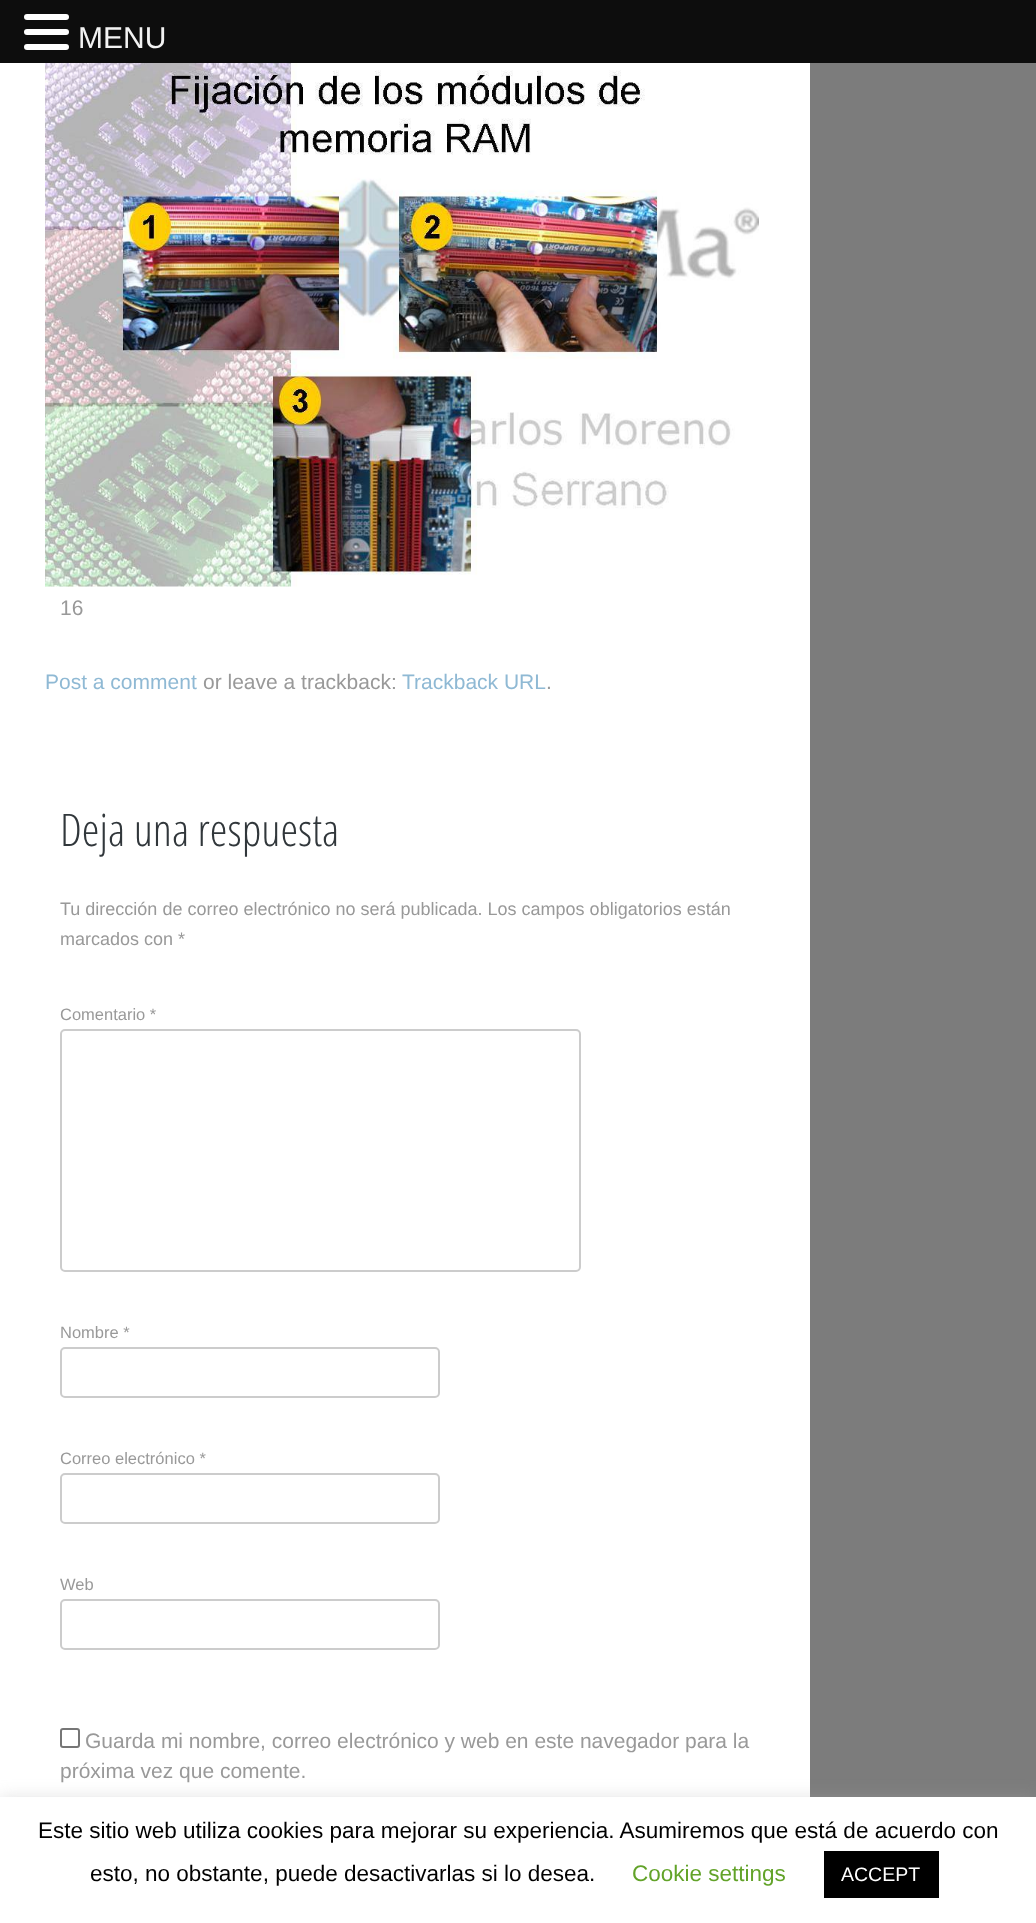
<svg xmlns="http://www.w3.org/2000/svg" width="1036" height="1923">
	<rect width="100%" height="100%" fill="#7C7C7C" />
	<rect x="0" y="0" width="1036" height="63" fill="#0D0D0D" />
	<rect x="24" y="14" width="45" height="6" rx="3" fill="#FFFFFF" />
	<rect x="24" y="29" width="45" height="6" rx="3" fill="#FFFFFF" />
	<rect x="24" y="44" width="45" height="6" rx="3" fill="#FFFFFF" />
	<text x="78" y="48" font-family="Liberation Sans" font-size="30" fill="#F2F2F2">MENU</text>
	<rect x="0" y="63" width="810" height="1734" fill="#FFFFFF" />
	<image x="45" y="63" width="714" height="524" href="assets/img1.png" />
	<text x="60" y="615" font-family="Liberation Sans" font-size="21" fill="#999999">16</text>
	<text x="45" y="689" font-family="Liberation Sans" font-size="21" fill="#8FB9D4">Post a comment</text>
	<text x="203" y="689" font-family="Liberation Sans" font-size="21" fill="#999999">or leave a trackback:</text>
	<text x="402" y="689" font-family="Liberation Sans" font-size="21" fill="#8FB9D4">Trackback URL</text>
	<text x="546" y="689" font-family="Liberation Sans" font-size="21" fill="#999999">.</text>
	<text x="60" y="846" font-family="Open Sans Condensed" font-size="45" font-weight="300" fill="#31373B">Deja una respuesta</text>
	<g font-family="Liberation Sans" font-size="18" fill="#999999">
		<text x="60" y="915">Tu dirección de correo electrónico no será publicada. Los campos obligatorios están</text>
		<text x="60" y="945">marcados con *</text>
	</g>
	<text x="60" y="1020" font-family="Liberation Sans" font-size="16.5" fill="#999999">Comentario *</text>
	<rect x="61" y="1030" width="519" height="241" rx="4" fill="none" stroke="#CCCCCC" stroke-width="2" />
	<text x="60" y="1338" font-family="Liberation Sans" font-size="16.5" fill="#999999">Nombre *</text>
	<rect x="61" y="1348" width="378" height="49" rx="4" fill="none" stroke="#CCCCCC" stroke-width="2" />
	<text x="60" y="1464" font-family="Liberation Sans" font-size="16.5" fill="#999999">Correo electrónico *</text>
	<rect x="61" y="1474" width="378" height="49" rx="4" fill="none" stroke="#CCCCCC" stroke-width="2" />
	<text x="60" y="1590" font-family="Liberation Sans" font-size="16.5" fill="#999999">Web</text>
	<rect x="61" y="1600" width="378" height="49" rx="4" fill="none" stroke="#CCCCCC" stroke-width="2" />
	<rect x="61" y="1729" width="18" height="18" rx="2" fill="none" stroke="#767676" stroke-width="2" />
	<g font-family="Liberation Sans" font-size="21" fill="#999999">
		<text x="85" y="1748">Guarda mi nombre, correo electrónico y web en este navegador para la</text>
		<text x="60" y="1778">próxima vez que comente.</text>
	</g>
	<rect x="0" y="1796" width="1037" height="126" fill="#ACABAB" fill-opacity="0.3" filter="blur(7.5px)" />
	<rect x="0" y="1797" width="1036" height="126" fill="#FFFFFF" />
	<g font-family="Liberation Sans" font-size="22.5" fill="#000000">
		<text x="38" y="1838">Este sitio web utiliza cookies para mejorar su experiencia. Asumiremos que está de acuerdo con</text>
		<text x="90" y="1881">esto, no obstante, puede desactivarlas si lo desea.</text>
	</g>
	<text x="632" y="1881" font-family="Liberation Sans" font-size="22.5" fill="#62A329">Cookie settings</text>
	<rect x="824" y="1851" width="115" height="47" fill="#000000" />
	<text x="841" y="1881" font-family="Liberation Sans" font-size="19.5" fill="#FFFFFF">ACCEPT</text>
</svg>
